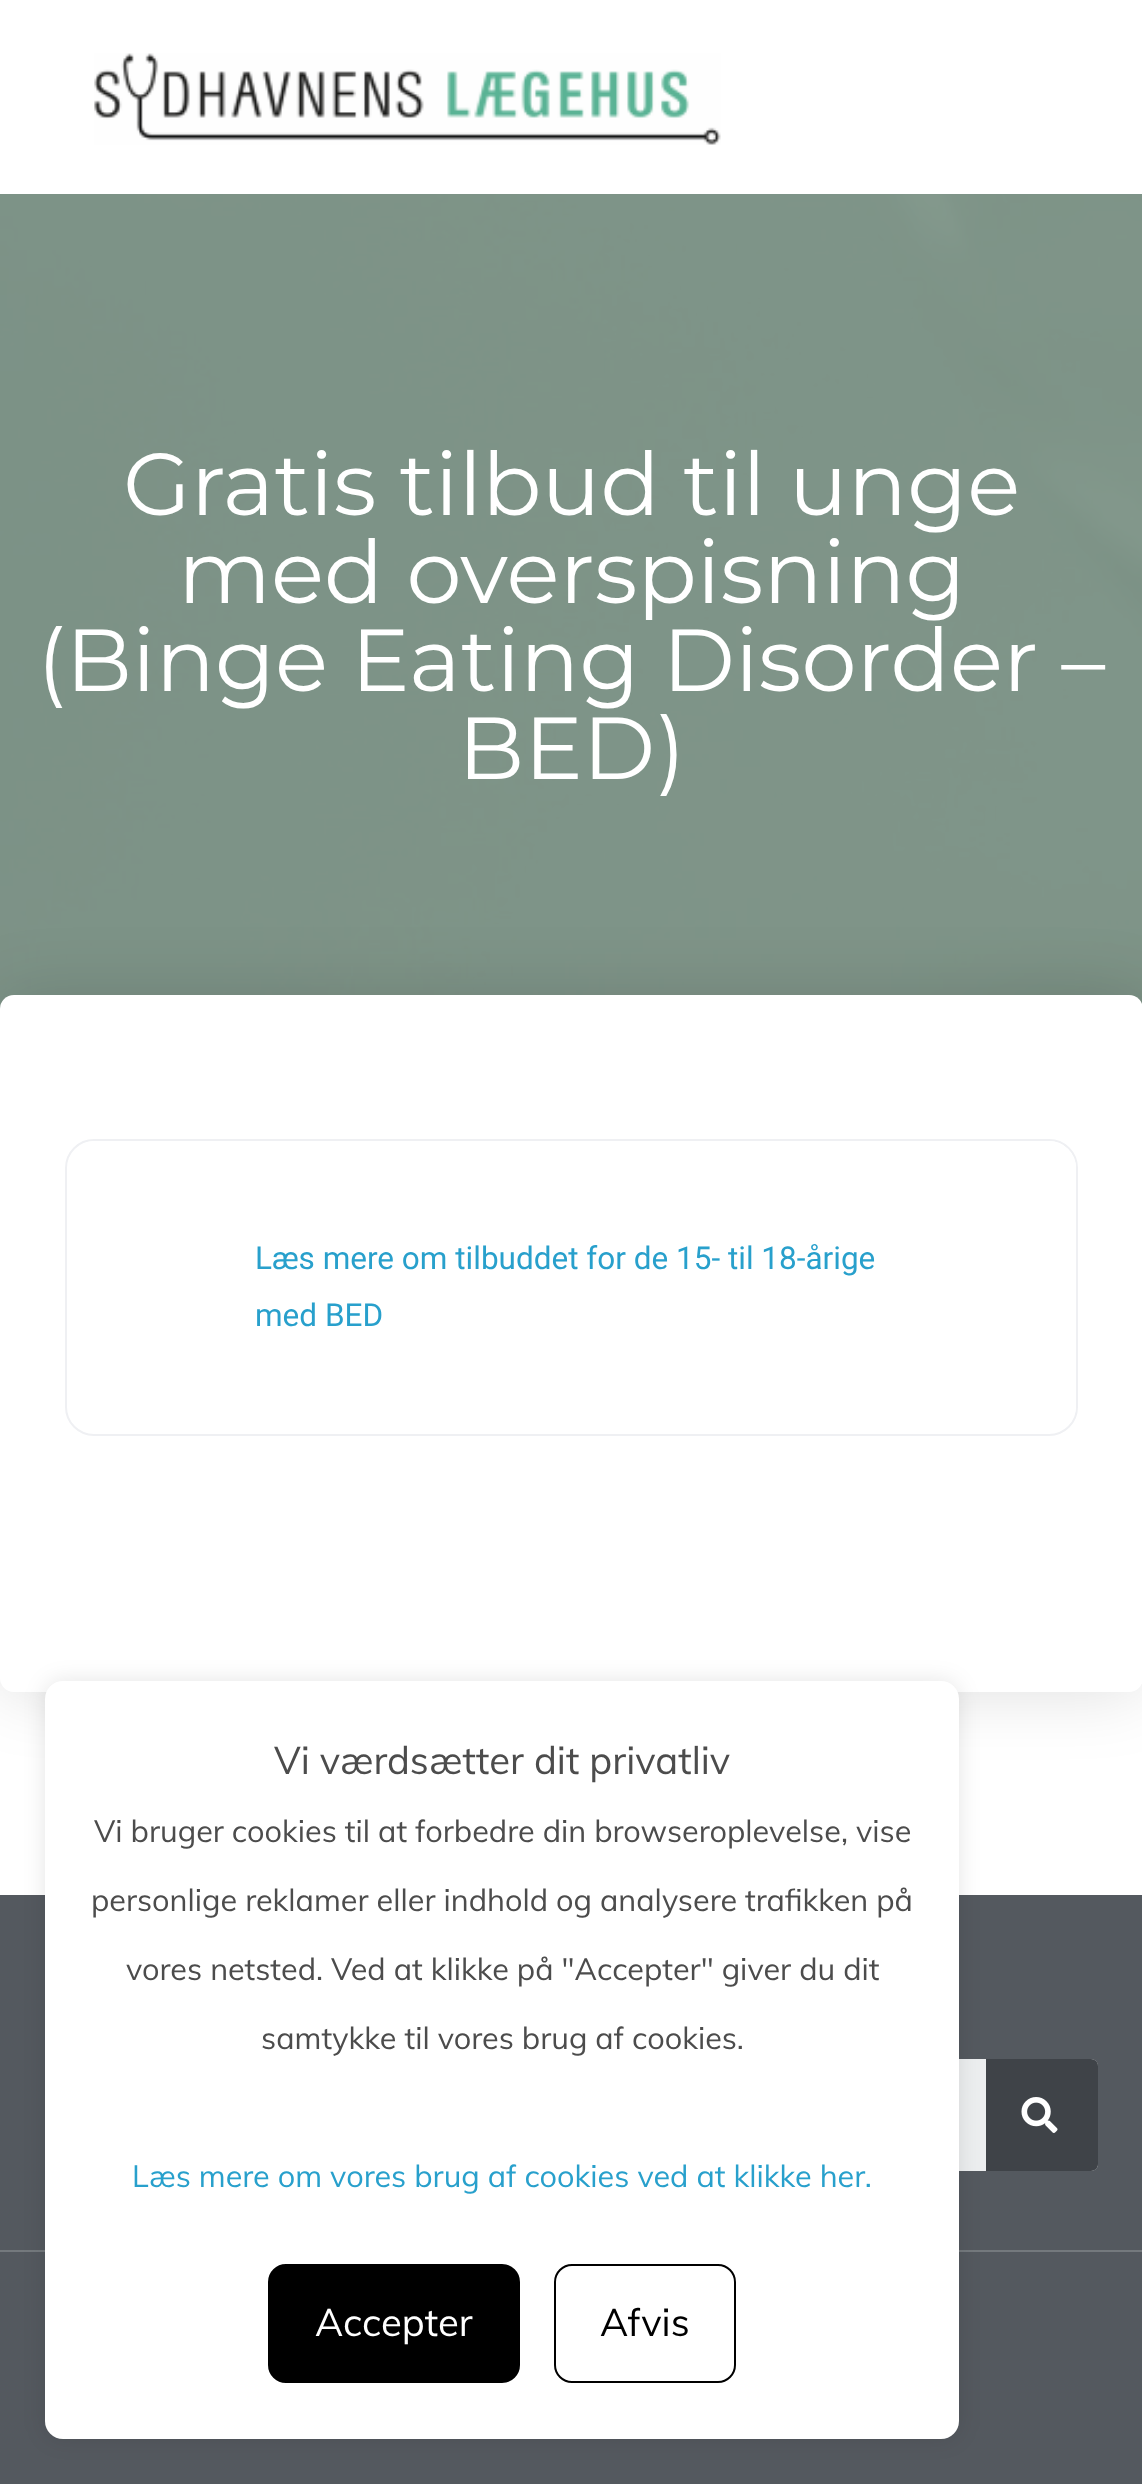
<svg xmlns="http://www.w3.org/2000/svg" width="1142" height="2484">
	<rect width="100%" height="100%" fill="#FFFFFF" />
	<image x="94" y="53" width="627" height="92" href="assets/img1.png" />
	<image x="0" y="194" width="1142" height="815" href="assets/img2.png" />
	<g font-family="Montserrat" font-size="87.75" fill="#FFFFFF">
		<text x="123" y="515">Gratis tilbud til unge</text>
		<text x="178" y="603">med overspisning</text>
		<text x="37" y="691">(Binge Eating Disorder –</text>
		<text x="458" y="779">BED)</text>
	</g>
	<rect x="0" y="995" width="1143" height="697" rx="14" fill="#000000" fill-opacity="0.13" filter="blur(34px)" />
	<rect x="0" y="995" width="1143" height="697" rx="14" fill="#FFFFFF" />
	<rect x="66" y="1140" width="1011" height="295" rx="28" fill="none" stroke="#EFF0F3" stroke-width="2" />
	<rect x="68" y="1141" width="1008" height="292" rx="27" fill="#FFFFFF" />
	<g font-family="Roboto" font-size="31.5" fill="#28A0CC">
		<text x="255" y="1269">Læs mere om tilbuddet for de 15- til 18-årige</text>
		<text x="255" y="1326">med BED</text>
	</g>
	<rect x="0" y="1895" width="1142" height="355" fill="#54595F" />
	<rect x="0" y="2250" width="1142" height="2" fill="#74797D" />
	<rect x="45" y="2059" width="1053" height="112" rx="7" fill="#ECEEEF" />
	<path d="M986 2059H1091C1095 2059 1098 2062 1098 2066V2164C1098 2168 1095 2171 1091 2171H986Z" fill="#3F4348" />
	<image x="1021" y="2097" width="37" height="36" href="assets/img3.png" />
	<rect x="0" y="2252" width="1142" height="232" fill="#54595F" />
	<rect x="45" y="1681" width="914" height="758" rx="18" fill="#000000" fill-opacity="0.1" filter="blur(11px)" />
	<rect x="45" y="1681" width="914" height="758" rx="18" fill="#FFFFFF" />
	<text x="274" y="1774" font-family="Muli" font-size="38.25" fill="#4C4C4C">Vi værdsætter dit privatliv</text>
	<g font-family="Muli" font-size="30.6" fill="#4C4C4C">
		<text x="94" y="1842">Vi bruger cookies til at forbedre din browseroplevelse, vise</text>
		<text x="91" y="1911">personlige reklamer eller indhold og analysere trafikken på</text>
		<text x="126" y="1980">vores netsted. Ved at klikke på "Accepter" giver du dit</text>
		<text x="261" y="2049">samtykke til vores brug af cookies.</text>
	</g>
	<text x="132" y="2187" font-family="Muli" font-size="30.6" fill="#28A0CC">Læs mere om vores brug af cookies ved at klikke her.</text>
	<rect x="269" y="2265" width="250" height="117" rx="17" fill="#000000" stroke="#000000" stroke-width="2" />
	<text x="315" y="2336" font-family="Muli" font-size="38.25" fill="#FFFFFF">Accepter</text>
	<rect x="555" y="2265" width="180" height="117" rx="17" fill="none" stroke="#000000" stroke-width="2" />
	<text x="600" y="2336" font-family="Muli" font-size="38.25" fill="#000000">Afvis</text>
</svg>
